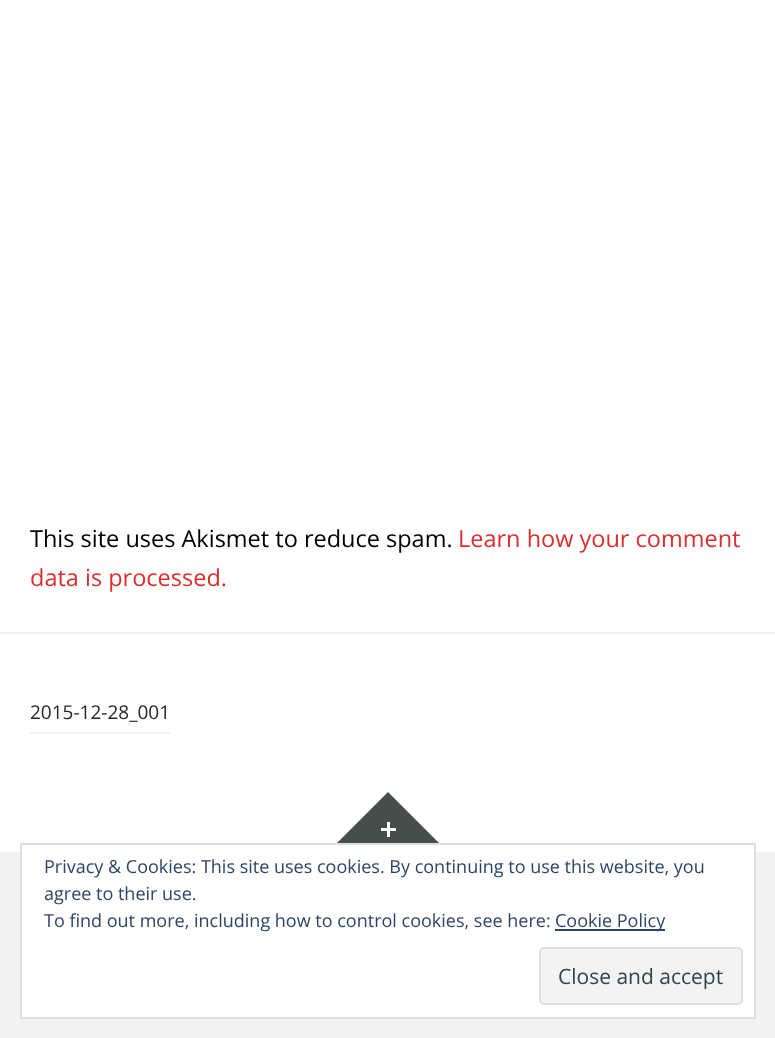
<svg xmlns="http://www.w3.org/2000/svg" width="775" height="1038">
	<rect width="100%" height="100%" fill="#FFFFFF" />
	<text x="30" y="547" font-family="Open Sans" font-size="23.5" fill="#000000">This site uses Akismet to reduce spam.</text>
	<g font-family="Open Sans" font-size="23.5" fill="#DB2E2E">
		<text x="458" y="547">Learn how your comment</text>
		<text x="30" y="586">data is processed.</text>
	</g>
	<rect x="0" y="632" width="775" height="2" fill="#F1F2F3" />
	<text x="30" y="719" font-family="Open Sans" font-size="19" fill="#24282D">2015-12-28_001</text>
	<rect x="30" y="732" width="140" height="2" fill="#F1F2F3" />
	<path d="M448 852H328L388 792Z" fill="#464D4D" />
	<image x="381" y="822" width="15" height="15" href="assets/img1.png" />
	<rect x="0" y="852" width="775" height="186" fill="#F1F2F3" />
	<rect x="21" y="844" width="734" height="174" fill="#FFFFFF" stroke="#DEDEDE" stroke-width="2" />
	<g font-family="Open Sans" font-size="18" fill="#2E4467">
		<text x="44" y="873">Privacy &amp; Cookies: This site uses cookies. By continuing to use this website, you</text>
		<text x="44" y="900">agree to their use.</text>
		<text x="44" y="927">To find out more, including how to control cookies, see here:</text>
	</g>
	<rect x="555" y="929" width="110" height="2" fill="#2E4467" />
	<text x="555" y="927" font-family="Open Sans" font-size="18" fill="#2E4467">Cookie Policy</text>
	<rect x="540" y="948" width="202" height="56" rx="4" fill="#F3F3F3" stroke="#DEDEDE" stroke-width="2" />
	<text x="558" y="984" font-family="Open Sans" font-size="21" fill="#2E4453">Close and accept</text>
</svg>
